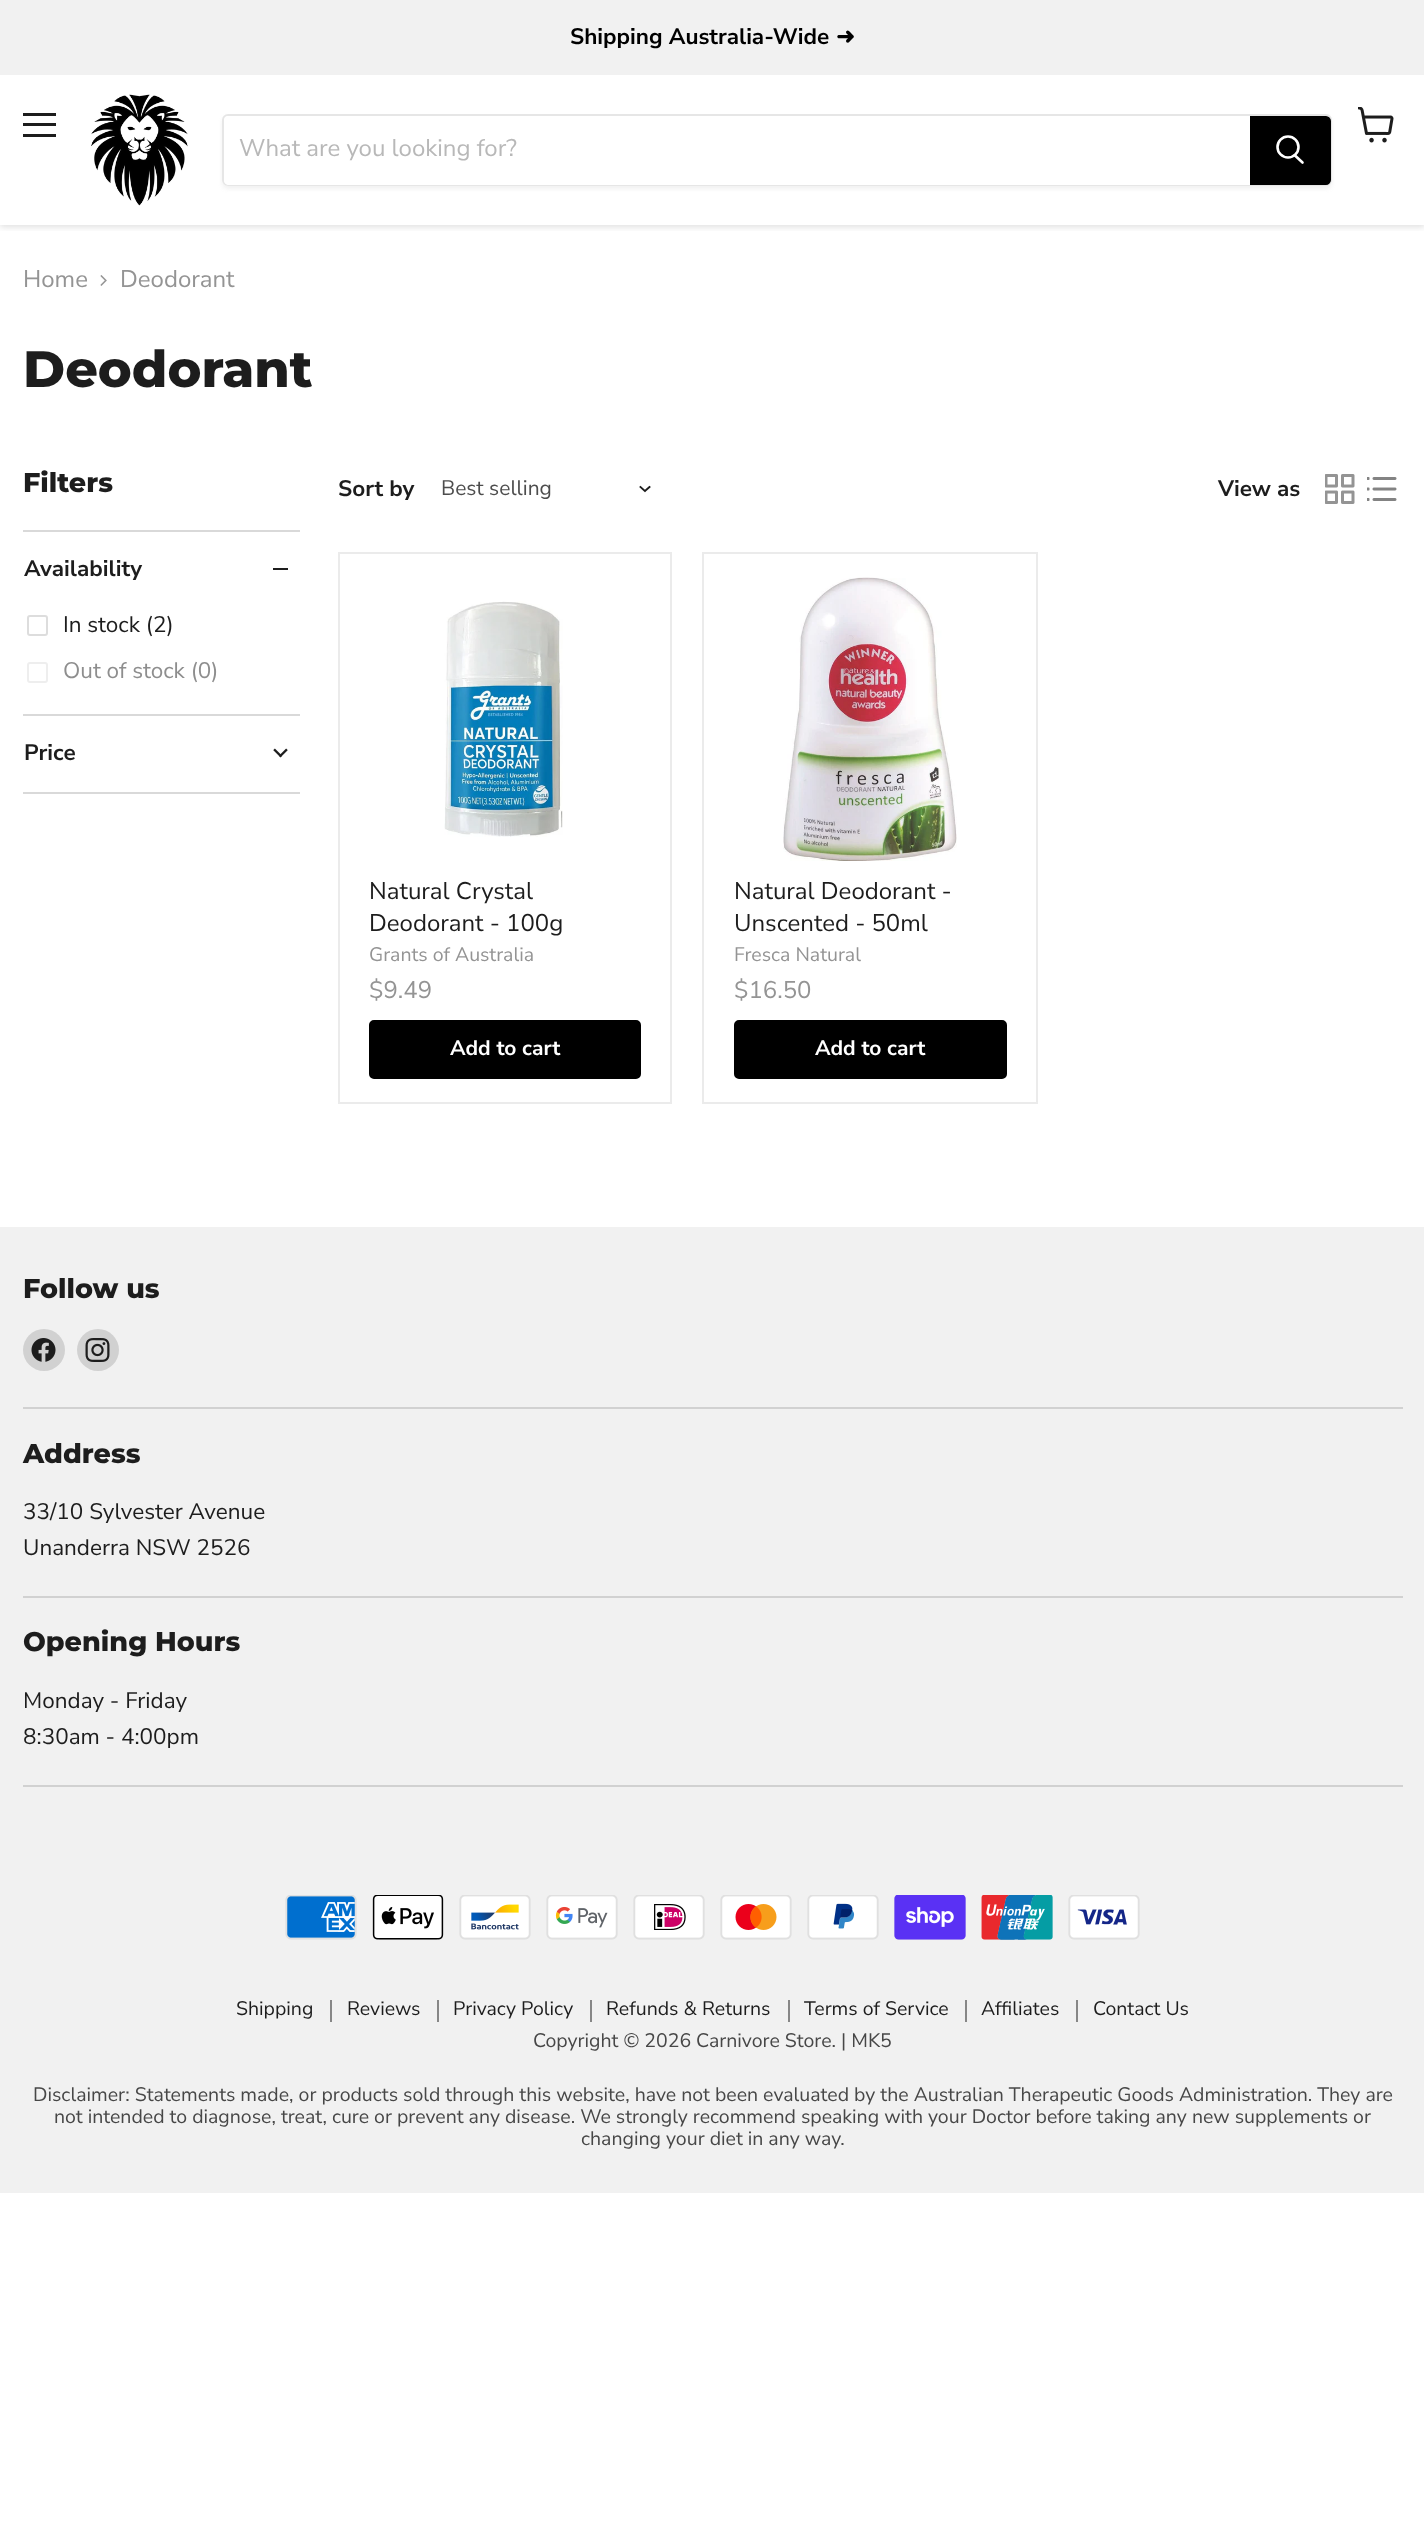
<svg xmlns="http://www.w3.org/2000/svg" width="1424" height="2531">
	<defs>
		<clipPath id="clip1"><rect x="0" y="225" width="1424" height="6" /></clipPath>
		<clipPath id="clip2"><path d="M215 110H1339V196H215ZM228 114H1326C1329.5 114 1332 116.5 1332 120V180C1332 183.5 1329.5 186 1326 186H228C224.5 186 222 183.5 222 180V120C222 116.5 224.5 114 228 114Z" clip-rule="evenodd" /></clipPath>
	</defs>
	<rect width="100%" height="100%" fill="#FFFFFF" />
	<g clip-path="url(#clip1)">
		<rect x="0" y="77" width="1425" height="150" fill="#808080" fill-opacity="0.25" filter="blur(3px)" />
	</g>
	<rect x="0" y="0" width="1424" height="75" fill="#F1F1F1" />
	<text x="570" y="44" font-family="Nunito Sans" font-size="22.5" font-weight="700" fill="#000000">Shipping Australia-Wide</text>
	<text x="836" y="44" font-family="DejaVu Sans" font-size="22.5" font-weight="700" fill="#000000">➜</text>
	<rect x="23" y="113" width="33" height="3" fill="#1D1D1D" />
	<rect x="23" y="123" width="33" height="3" fill="#1D1D1D" />
	<rect x="23" y="134" width="33" height="3" fill="#1D1D1D" />
	<image x="1358" y="107" width="36" height="36" href="assets/img1.png" />
	<image x="91" y="94" width="97" height="112" href="assets/img2.png" />
	<g clip-path="url(#clip2)">
		<rect x="222" y="117" width="1110" height="72" rx="6" fill="#808080" fill-opacity="0.11" filter="blur(2px)" />
	</g>
	<rect x="223" y="115" width="1108" height="70" rx="5" fill="none" stroke="#808080" stroke-opacity="0.2" stroke-width="2" />
	<path d="M229 116H1250V185H229C226 185 224 183 224 180V121C224 118 226 116 229 116Z" fill="#FFFFFF" />
	<text x="239" y="156" font-family="Nunito Sans" font-size="24" fill="#B8B8B8">What are you looking for?</text>
	<path d="M1251 117H1326C1328 117 1330 119 1330 121V180C1330 182 1328 184 1326 184H1251Z" fill="#000000" stroke="#000000" stroke-width="2" />
	<path d="M1302.5 162.5L1295 155.5" fill="none" stroke="#FFFFFF" stroke-width="2.6" stroke-linecap="round" />
	<circle cx="1288" cy="147" r="10.5" fill="none" stroke="#FFFFFF" stroke-width="2.6" />
	<text x="23" y="287" font-family="Nunito Sans" font-size="24" fill="#949494">Home</text>
	<image x="100" y="275" width="7" height="11" href="assets/img3.png" />
	<text x="120" y="287" font-family="Nunito Sans" font-size="24" fill="#949494">Deodorant</text>
	<text x="23" y="387" font-family="Montserrat" font-size="51" font-weight="800" fill="#1D1D1D">Deodorant</text>
	<text x="23" y="492" font-family="Montserrat" font-size="27" font-weight="800" fill="#1D1D1D">Filters</text>
	<rect x="23" y="530" width="277" height="2" fill="#D9D9D9" />
	<text x="24" y="576" font-family="Nunito Sans" font-size="22.5" font-weight="700" fill="#1D1D1D">Availability</text>
	<rect x="273" y="568" width="15" height="2" fill="#1D1D1D" />
	<rect x="28" y="616" width="19" height="19" rx="2" fill="none" stroke="#DDDDDD" stroke-width="2" />
	<text x="63" y="632" font-family="Nunito Sans" font-size="22.5" fill="#1D1D1D">In stock (2)</text>
	<rect x="28" y="663" width="19" height="19" rx="2" fill="none" stroke="#EEEEEE" stroke-width="2" />
	<text x="63" y="678" font-family="Nunito Sans" font-size="22.5" fill="#8E8E8E">Out of stock (0)</text>
	<rect x="23" y="714" width="277" height="2" fill="#D9D9D9" />
	<rect x="23" y="792" width="277" height="2" fill="#D9D9D9" />
	<text x="24" y="760" font-family="Nunito Sans" font-size="22.5" font-weight="700" fill="#1D1D1D">Price</text>
	<image x="273" y="748" width="15" height="10" href="assets/img4.png" />
	<text x="338" y="496" font-family="Nunito Sans" font-size="22.5" font-weight="700" fill="#1D1D1D">Sort by</text>
	<text x="441" y="495" font-family="Nunito Sans" font-size="21" fill="#4D4D4D">Best selling</text>
	<path d="M645 491L649.5 487M645 491L640.5 487" fill="none" stroke="#1D1D1D" stroke-width="1.9" stroke-linecap="square" />
	<text x="1218" y="496" font-family="Nunito Sans" font-size="22.5" font-weight="700" fill="#1D1D1D">View as</text>
	<image x="1325" y="474" width="30" height="30" href="assets/img5.png" />
	<image x="1367" y="477" width="30" height="24" href="assets/img6.png" />
	<rect x="339" y="553" width="332" height="550" fill="none" stroke="#EBEBEB" stroke-width="2" />
	<image x="444" y="601" width="119" height="236" href="assets/img7.png" />
	<g font-family="Nunito Sans" font-size="24" fill="#1D1D1D">
		<text x="369" y="899">Natural Crystal</text>
		<text x="369" y="931">Deodorant - 100g</text>
	</g>
	<text x="369" y="961" font-family="Nunito Sans" font-size="19.5" fill="#949494">Grants of Australia</text>
	<text x="369" y="998" font-family="Nunito Sans" font-size="24" fill="#949494">$9.49</text>
	<rect x="370" y="1021" width="270" height="57" rx="4" fill="#000000" stroke="#000000" stroke-width="2" />
	<text x="450" y="1055" font-family="Nunito Sans" font-size="21" font-weight="700" fill="#FFFFFF">Add to cart</text>
	<rect x="703" y="553" width="334" height="550" fill="none" stroke="#EBEBEB" stroke-width="2" />
	<image x="783" y="577" width="174" height="284" href="assets/img8.png" />
	<g font-family="Nunito Sans" font-size="24" fill="#1D1D1D">
		<text x="734" y="899">Natural Deodorant -</text>
		<text x="734" y="931">Unscented - 50ml</text>
	</g>
	<text x="734" y="961" font-family="Nunito Sans" font-size="19.5" fill="#949494">Fresca Natural</text>
	<text x="734" y="998" font-family="Nunito Sans" font-size="24" fill="#949494">$16.50</text>
	<rect x="735" y="1021" width="271" height="57" rx="4" fill="#000000" stroke="#000000" stroke-width="2" />
	<text x="815" y="1055" font-family="Nunito Sans" font-size="21" font-weight="700" fill="#FFFFFF">Add to cart</text>
	<rect x="0" y="1227" width="1424" height="966" fill="#F1F1F1" />
	<rect x="23" y="1407" width="1380" height="2" fill="#D1D1D1" />
	<text x="23" y="1298" font-family="Montserrat" font-size="27" font-weight="800" fill="#1D1D1D">Follow us</text>
	<circle cx="44" cy="1350" r="21" fill="#D1D1D1" />
	<image x="31" y="1338" width="25" height="24" href="assets/img9.png" />
	<circle cx="98" cy="1350" r="21" fill="#D1D1D1" />
	<image x="85" y="1338" width="25" height="24" href="assets/img10.png" />
	<rect x="23" y="1596" width="1380" height="2" fill="#D1D1D1" />
	<text x="23" y="1463" font-family="Montserrat" font-size="27" font-weight="800" fill="#1D1D1D">Address</text>
	<g font-family="Nunito Sans" font-size="22.5" fill="#1D1D1D">
		<text x="23" y="1519">33/10 Sylvester Avenue</text>
		<text x="23" y="1555">Unanderra NSW 2526</text>
	</g>
	<rect x="23" y="1785" width="1380" height="2" fill="#D1D1D1" />
	<text x="23" y="1651" font-family="Montserrat" font-size="27" font-weight="800" fill="#1D1D1D">Opening Hours</text>
	<g font-family="Nunito Sans" font-size="22.5" fill="#1D1D1D">
		<text x="23" y="1708">Monday - Friday</text>
		<text x="23" y="1744">8:30am - 4:00pm</text>
	</g>
	<image x="285" y="1895" width="72" height="45" href="assets/img11.png" />
	<image x="372" y="1895" width="72" height="45" href="assets/img12.png" />
	<image x="459" y="1895" width="72" height="45" href="assets/img13.png" />
	<image x="546" y="1895" width="72" height="45" href="assets/img14.png" />
	<image x="633" y="1895" width="72" height="45" href="assets/img15.png" />
	<image x="720" y="1895" width="72" height="45" href="assets/img16.png" />
	<image x="807" y="1895" width="72" height="45" href="assets/img17.png" />
	<image x="894" y="1895" width="72" height="45" href="assets/img18.png" />
	<image x="981" y="1895" width="72" height="45" href="assets/img19.png" />
	<image x="1068" y="1895" width="72" height="45" href="assets/img20.png" />
	<rect x="330" y="2000" width="2" height="22" fill="#878787" />
	<text x="236" y="2015" font-family="Nunito Sans" font-size="19.5" fill="#1D1D1D">Shipping</text>
	<rect x="437" y="2000" width="2" height="22" fill="#878787" />
	<text x="347" y="2015" font-family="Nunito Sans" font-size="19.5" fill="#1D1D1D">Reviews</text>
	<rect x="590" y="2000" width="2" height="22" fill="#878787" />
	<text x="453" y="2015" font-family="Nunito Sans" font-size="19.5" fill="#1D1D1D">Privacy Policy</text>
	<rect x="788" y="2000" width="2" height="22" fill="#878787" />
	<text x="606" y="2015" font-family="Nunito Sans" font-size="19.5" fill="#1D1D1D">Refunds &amp; Returns</text>
	<rect x="965" y="2000" width="2" height="22" fill="#878787" />
	<text x="804" y="2015" font-family="Nunito Sans" font-size="19.5" fill="#1D1D1D">Terms of Service</text>
	<rect x="1076" y="2000" width="2" height="22" fill="#878787" />
	<g font-family="Nunito Sans" font-size="19.5" fill="#1D1D1D">
		<text x="981" y="2015">Affiliates</text>
		<text x="1093" y="2015">Contact Us</text>
	</g>
	<g font-family="Nunito Sans" font-size="19.5" fill="#474747">
		<text x="533" y="2047">Copyright © 2026 Carnivore Store. | MK5</text>
		<text x="33" y="2101">Disclaimer: Statements made, or products sold through this website, have not been evaluated by the Australian Therapeutic Goods Administration. They are</text>
		<text x="54" y="2123">not intended to diagnose, treat, cure or prevent any disease. We strongly recommend speaking with your Doctor before taking any new supplements or</text>
		<text x="581" y="2145">changing your diet in any way.</text>
	</g>
</svg>
